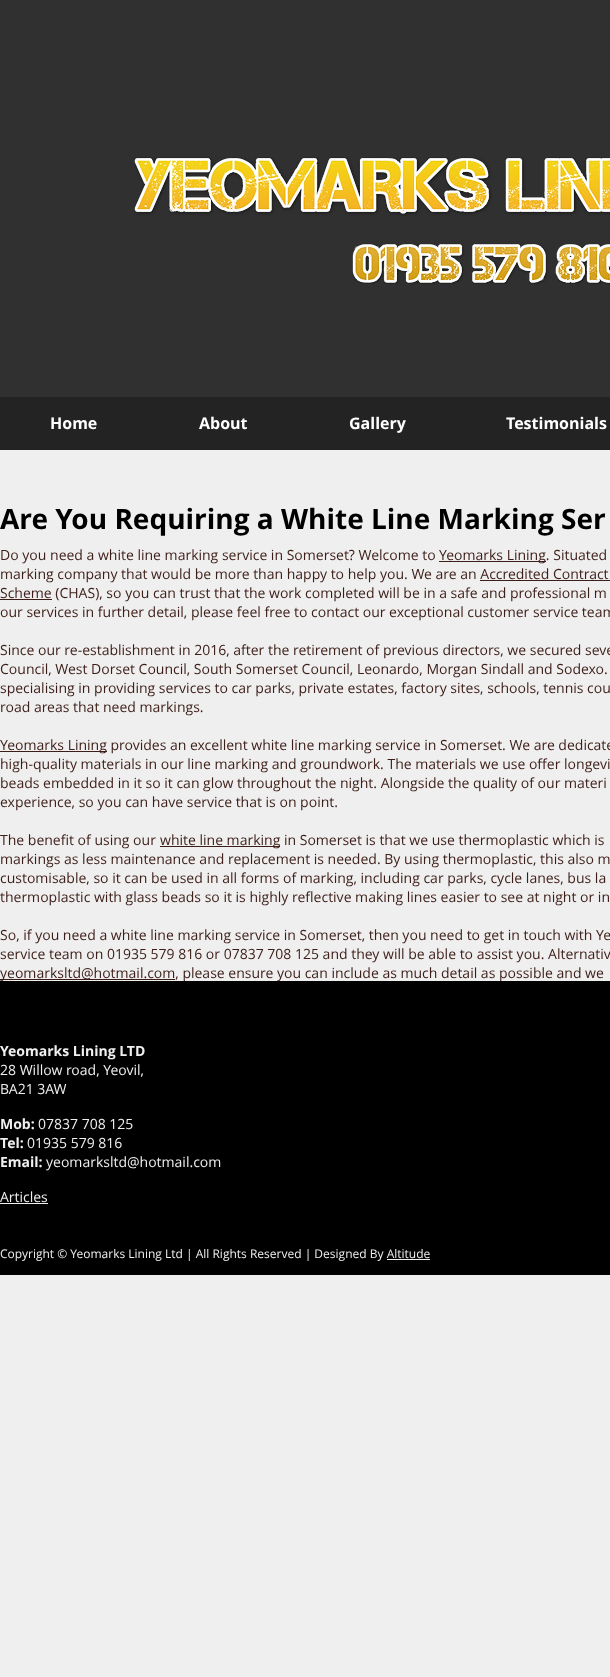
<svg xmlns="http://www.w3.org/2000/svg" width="610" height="1677">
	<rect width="100%" height="100%" fill="#EFEFEF" />
	<rect x="0" y="0" width="610" height="397" fill="#303030" />
	<image x="134" y="157" width="476" height="59" href="assets/img1.png" />
	<image x="352" y="243" width="258" height="42" href="assets/img2.png" />
	<rect x="0" y="397" width="610" height="53" fill="#242323" />
	<g font-family="Open Sans" font-size="16" font-weight="700" fill="#FFFFFF">
		<text x="50" y="429">Home</text>
		<text x="199" y="429">About</text>
		<text x="349" y="429">Gallery</text>
		<text x="506" y="429">Testimonials</text>
	</g>
	<text x="0" y="529" font-family="Open Sans" font-size="28" font-weight="700" fill="#000000">Are You Requiring a White Line Marking Ser</text>
	<text x="0" y="560" font-family="Open Sans" font-size="14" fill="#3C1D17">Do you need a white line marking service in Somerset? Welcome to</text>
	<rect x="439" y="561" width="107" height="1" fill="#3C1D17" />
	<g font-family="Open Sans" font-size="14" fill="#3C1D17">
		<text x="439" y="560">Yeomarks Lining. Situated</text>
		<text x="0" y="579">marking company that would be more than happy to help you. We are an Accredited Contract</text>
	</g>
	<rect x="0" y="599" width="52" height="1" fill="#3C1D17" />
	<text x="0" y="598" font-family="Open Sans" font-size="14" fill="#3C1D17">Scheme (CHAS), so you can trust that the work completed will be in a safe and professional m</text>
	<rect x="480" y="580" width="130" height="1" fill="#3C1D17" />
	<g font-family="Open Sans" font-size="14" fill="#3C1D17">
		<text x="0" y="617">our services in further detail, please feel free to contact our exceptional customer service team</text>
		<text x="0" y="655">Since our re-establishment in 2016, after the retirement of previous directors, we secured seve</text>
		<text x="0" y="674">Council, West Dorset Council, South Somerset Council, Leonardo, Morgan Sindall and Sodexo.</text>
		<text x="0" y="693">specialising in providing services to car parks, private estates, factory sites, schools, tennis cou</text>
		<text x="0" y="712">road areas that need markings.</text>
	</g>
	<rect x="0" y="751" width="107" height="1" fill="#3C1D17" />
	<g font-family="Open Sans" font-size="14" fill="#3C1D17">
		<text x="0" y="750">Yeomarks Lining provides an excellent white line marking service in Somerset. We are dedicate</text>
		<text x="0" y="769">high-quality materials in our line marking and groundwork. The materials we use offer longevi</text>
		<text x="0" y="788">beads embedded in it so it can glow throughout the night. Alongside the quality of our materi</text>
		<text x="0" y="807">experience, so you can have service that is on point.</text>
		<text x="0" y="845">The benefit of using our</text>
	</g>
	<rect x="160" y="846" width="120" height="1" fill="#3C1D17" />
	<g font-family="Open Sans" font-size="14" fill="#3C1D17">
		<text x="160" y="845">white line marking in Somerset is that we use thermoplastic which is</text>
		<text x="0" y="864">markings as less maintenance and replacement is needed. By using thermoplastic, this also m</text>
		<text x="0" y="883">customisable, so it can be used in all forms of marking, including car parks, cycle lanes, bus la</text>
		<text x="0" y="902">thermoplastic with glass beads so it is highly reflective making lines easier to see at night or in</text>
		<text x="0" y="940">So, if you need a white line marking service in Somerset, then you need to get in touch with Ye</text>
		<text x="0" y="959">service team on 01935 579 816 or 07837 708 125 and they will be able to assist you. Alternativ</text>
	</g>
	<rect x="0" y="979" width="175" height="1" fill="#3C1D17" />
	<text x="0" y="978" font-family="Open Sans" font-size="14" fill="#3C1D17">yeomarksltd@hotmail.com, please ensure you can include as much detail as possible and we</text>
	<rect x="0" y="981" width="610" height="294" fill="#000000" />
	<text x="0" y="1056" font-family="Open Sans" font-size="14" font-weight="700" fill="#EFEFEF">Yeomarks Lining LTD</text>
	<g font-family="Open Sans" font-size="14" fill="#EFEFEF">
		<text x="0" y="1075">28 Willow road, Yeovil,</text>
		<text x="0" y="1094">BA21 3AW</text>
	</g>
	<text x="0" y="1129" font-family="Open Sans" font-size="14" font-weight="700" fill="#EFEFEF">Mob:</text>
	<text x="38" y="1129" font-family="Open Sans" font-size="14" fill="#EFEFEF">07837 708 125</text>
	<text x="0" y="1148" font-family="Open Sans" font-size="14" font-weight="700" fill="#EFEFEF">Tel:</text>
	<text x="27" y="1148" font-family="Open Sans" font-size="14" fill="#EFEFEF">01935 579 816</text>
	<text x="0" y="1167" font-family="Open Sans" font-size="14" font-weight="700" fill="#EFEFEF">Email:</text>
	<g font-family="Open Sans" font-size="14" fill="#EFEFEF">
		<text x="46" y="1167">yeomarksltd@hotmail.com</text>
		<text x="0" y="1202">Articles</text>
	</g>
	<rect x="0" y="1203" width="48" height="1" fill="#EFEFEF" />
	<text x="0" y="1258" font-family="Open Sans" font-size="12" fill="#EFEFEF">Copyright © Yeomarks Lining Ltd | All Rights Reserved | Designed By Altitude</text>
	<rect x="387" y="1259" width="43" height="1" fill="#EFEFEF" />
</svg>
